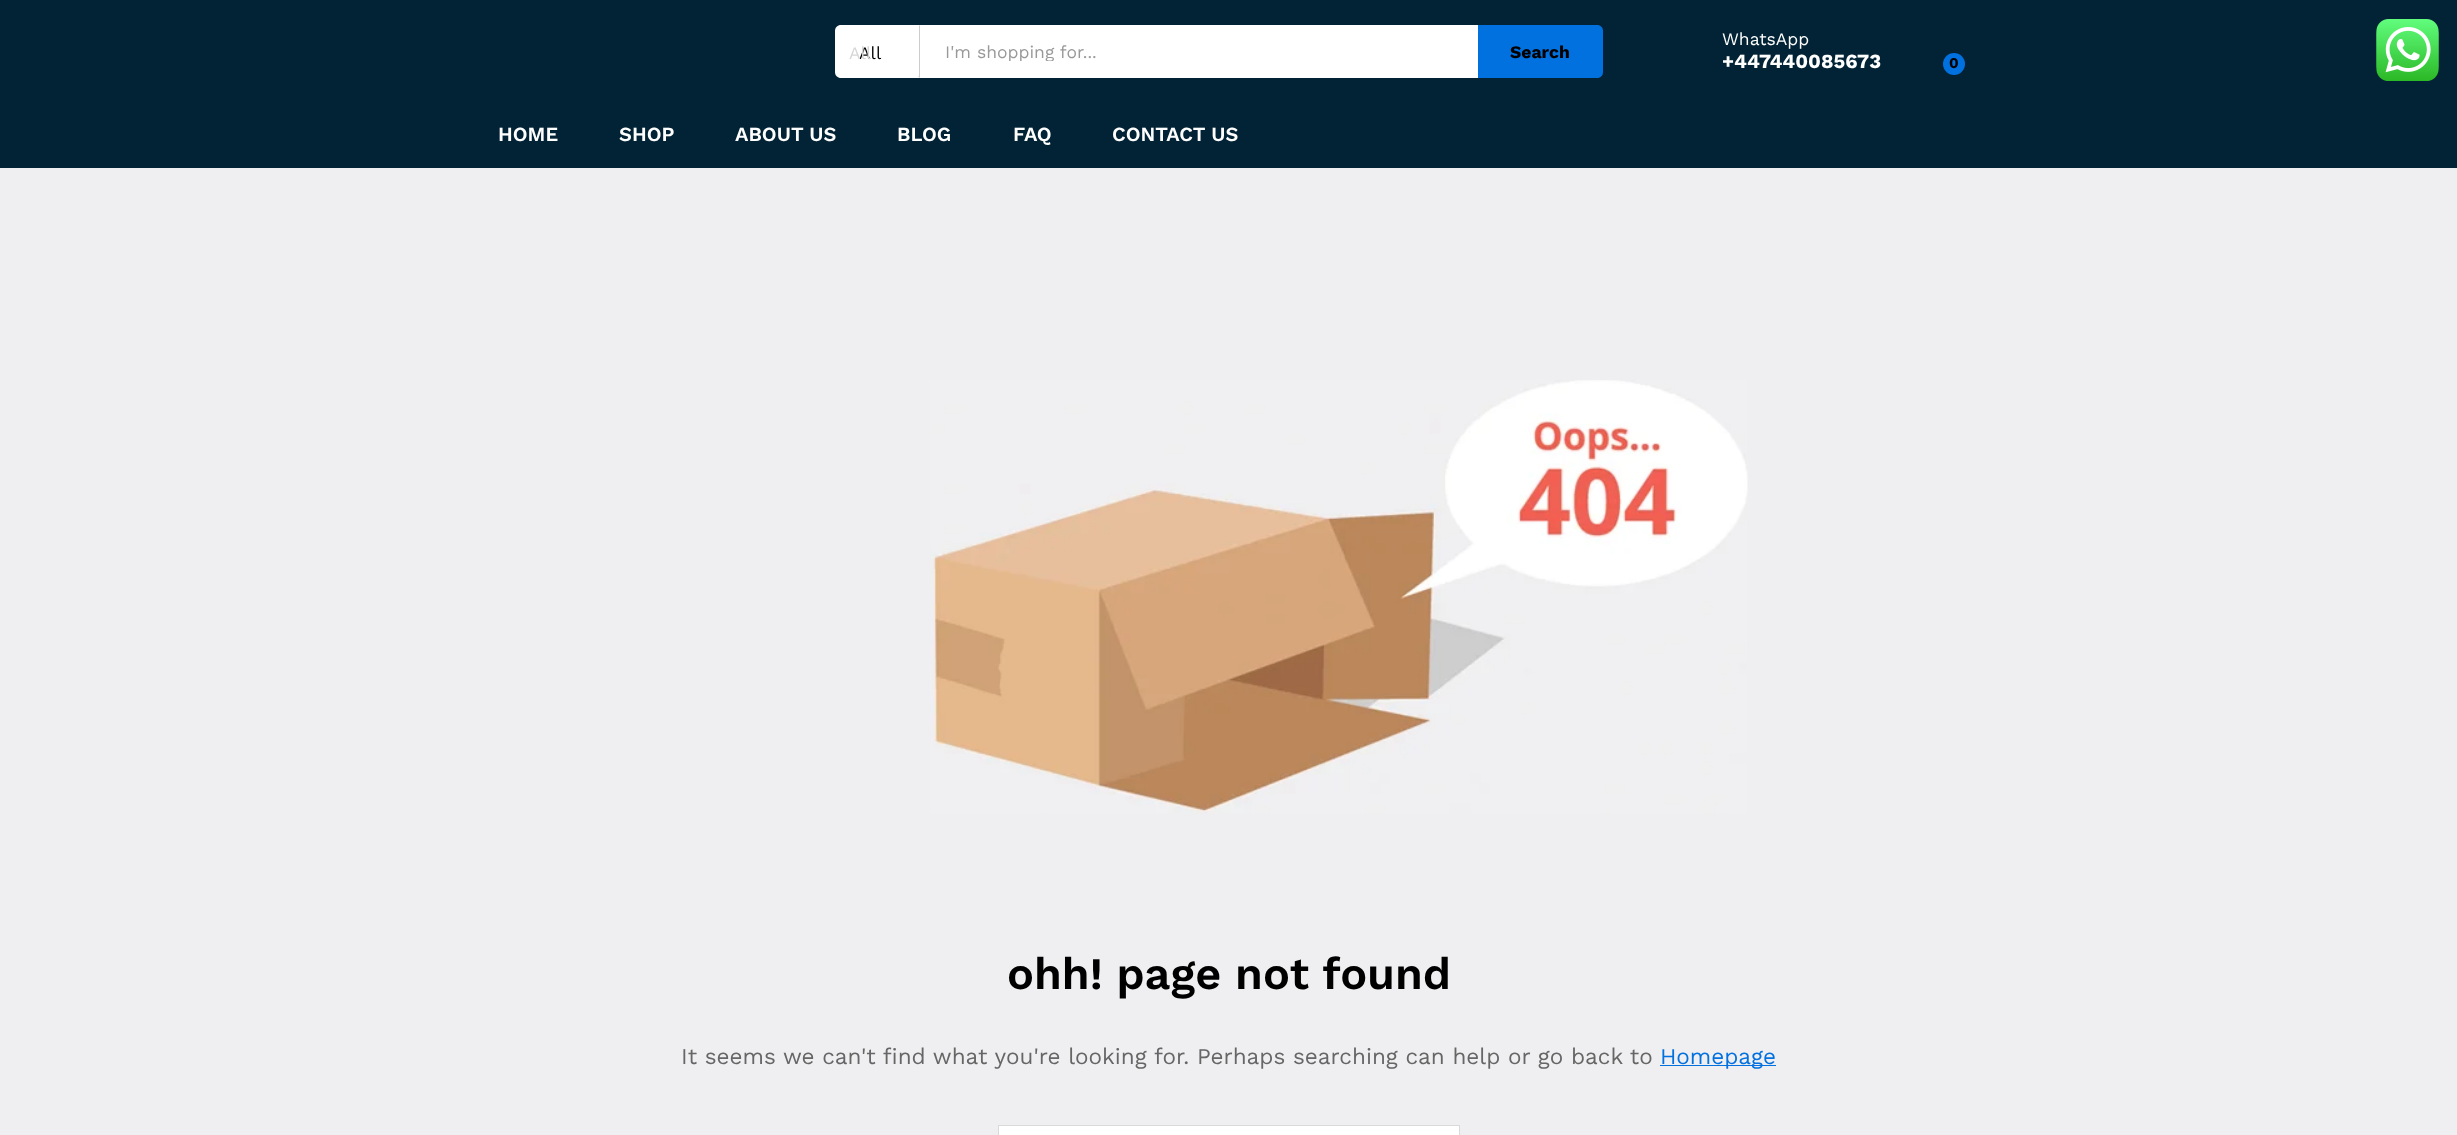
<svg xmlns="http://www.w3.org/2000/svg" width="2457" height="1135">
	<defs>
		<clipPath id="clip1"><rect x="945" y="41" width="508" height="20" /></clipPath>
	</defs>
	<rect width="100%" height="100%" fill="#EFEEF0" />
	<rect x="0" y="0" width="2457" height="168" fill="#022335" />
	<path d="M841 25H920V78H841C837.5 78 835 75.5 835 72V31C835 27.5 837.5 25 841 25Z" fill="#FFFFFF" />
	<text x="859" y="59" font-family="Work Sans" font-size="17.5" fill="#000000">All</text>
	<text x="849" y="59" font-family="Work Sans" font-size="17.5" fill="#D6D6D6">All</text>
	<path d="M920 25L919 26V76H918L920 78Z" fill="#CCCCCC" />
	<rect x="920" y="25" width="558" height="53" fill="#FFFFFF" />
	<g clip-path="url(#clip1)">
		<text x="945" y="58" font-family="Work Sans" font-size="17.5" fill="#999999">I'm shopping for...</text>
	</g>
	<path d="M1478 25H1597C1600.5 25 1603 27.5 1603 31V72C1603 75.5 1600.5 78 1597 78H1478Z" fill="#0071DF" />
	<text x="1510" y="58" font-family="Work Sans" font-size="17.5" font-weight="700" fill="#000000">Search</text>
	<text x="1722" y="45" font-family="Work Sans" font-size="17.5" fill="#FFFFFF">WhatsApp</text>
	<text x="1722" y="68" font-family="Work Sans" font-size="20" font-weight="700" fill="#FFFFFF">+447440085673</text>
	<circle cx="1954" cy="64" r="11" fill="#0071DF" />
	<text x="1949" y="68" font-family="Work Sans" font-size="15" font-weight="700" fill="#000000">0</text>
	<g font-family="Work Sans" font-size="20" font-weight="600" fill="#FFFFFF">
		<text x="498" y="141">HOME</text>
		<text x="619" y="141">SHOP</text>
		<text x="735" y="141">ABOUT US</text>
		<text x="897" y="141">BLOG</text>
		<text x="1013" y="141">FAQ</text>
		<text x="1112" y="141">CONTACT US</text>
	</g>
	<image x="930" y="380" width="818" height="434" href="assets/img1.png" />
	<text x="1007" y="989" font-family="Work Sans" font-size="45" font-weight="600" fill="#000000">ohh! page not found</text>
	<text x="681" y="1064" font-family="Work Sans" font-size="22.5" fill="#666666">It seems we can't find what you're looking for. Perhaps searching can help or go back to</text>
	<rect x="1660" y="1065" width="116" height="1" fill="#0071DF" />
	<text x="1660" y="1064" font-family="Work Sans" font-size="22.5" fill="#0071DF">Homepage</text>
	<rect x="998.5" y="1125.5" width="461" height="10" fill="#FFFFFF" stroke="#D9D9D9" />
	<image x="2376" y="19" width="63" height="62" href="assets/img2.png" />
</svg>
